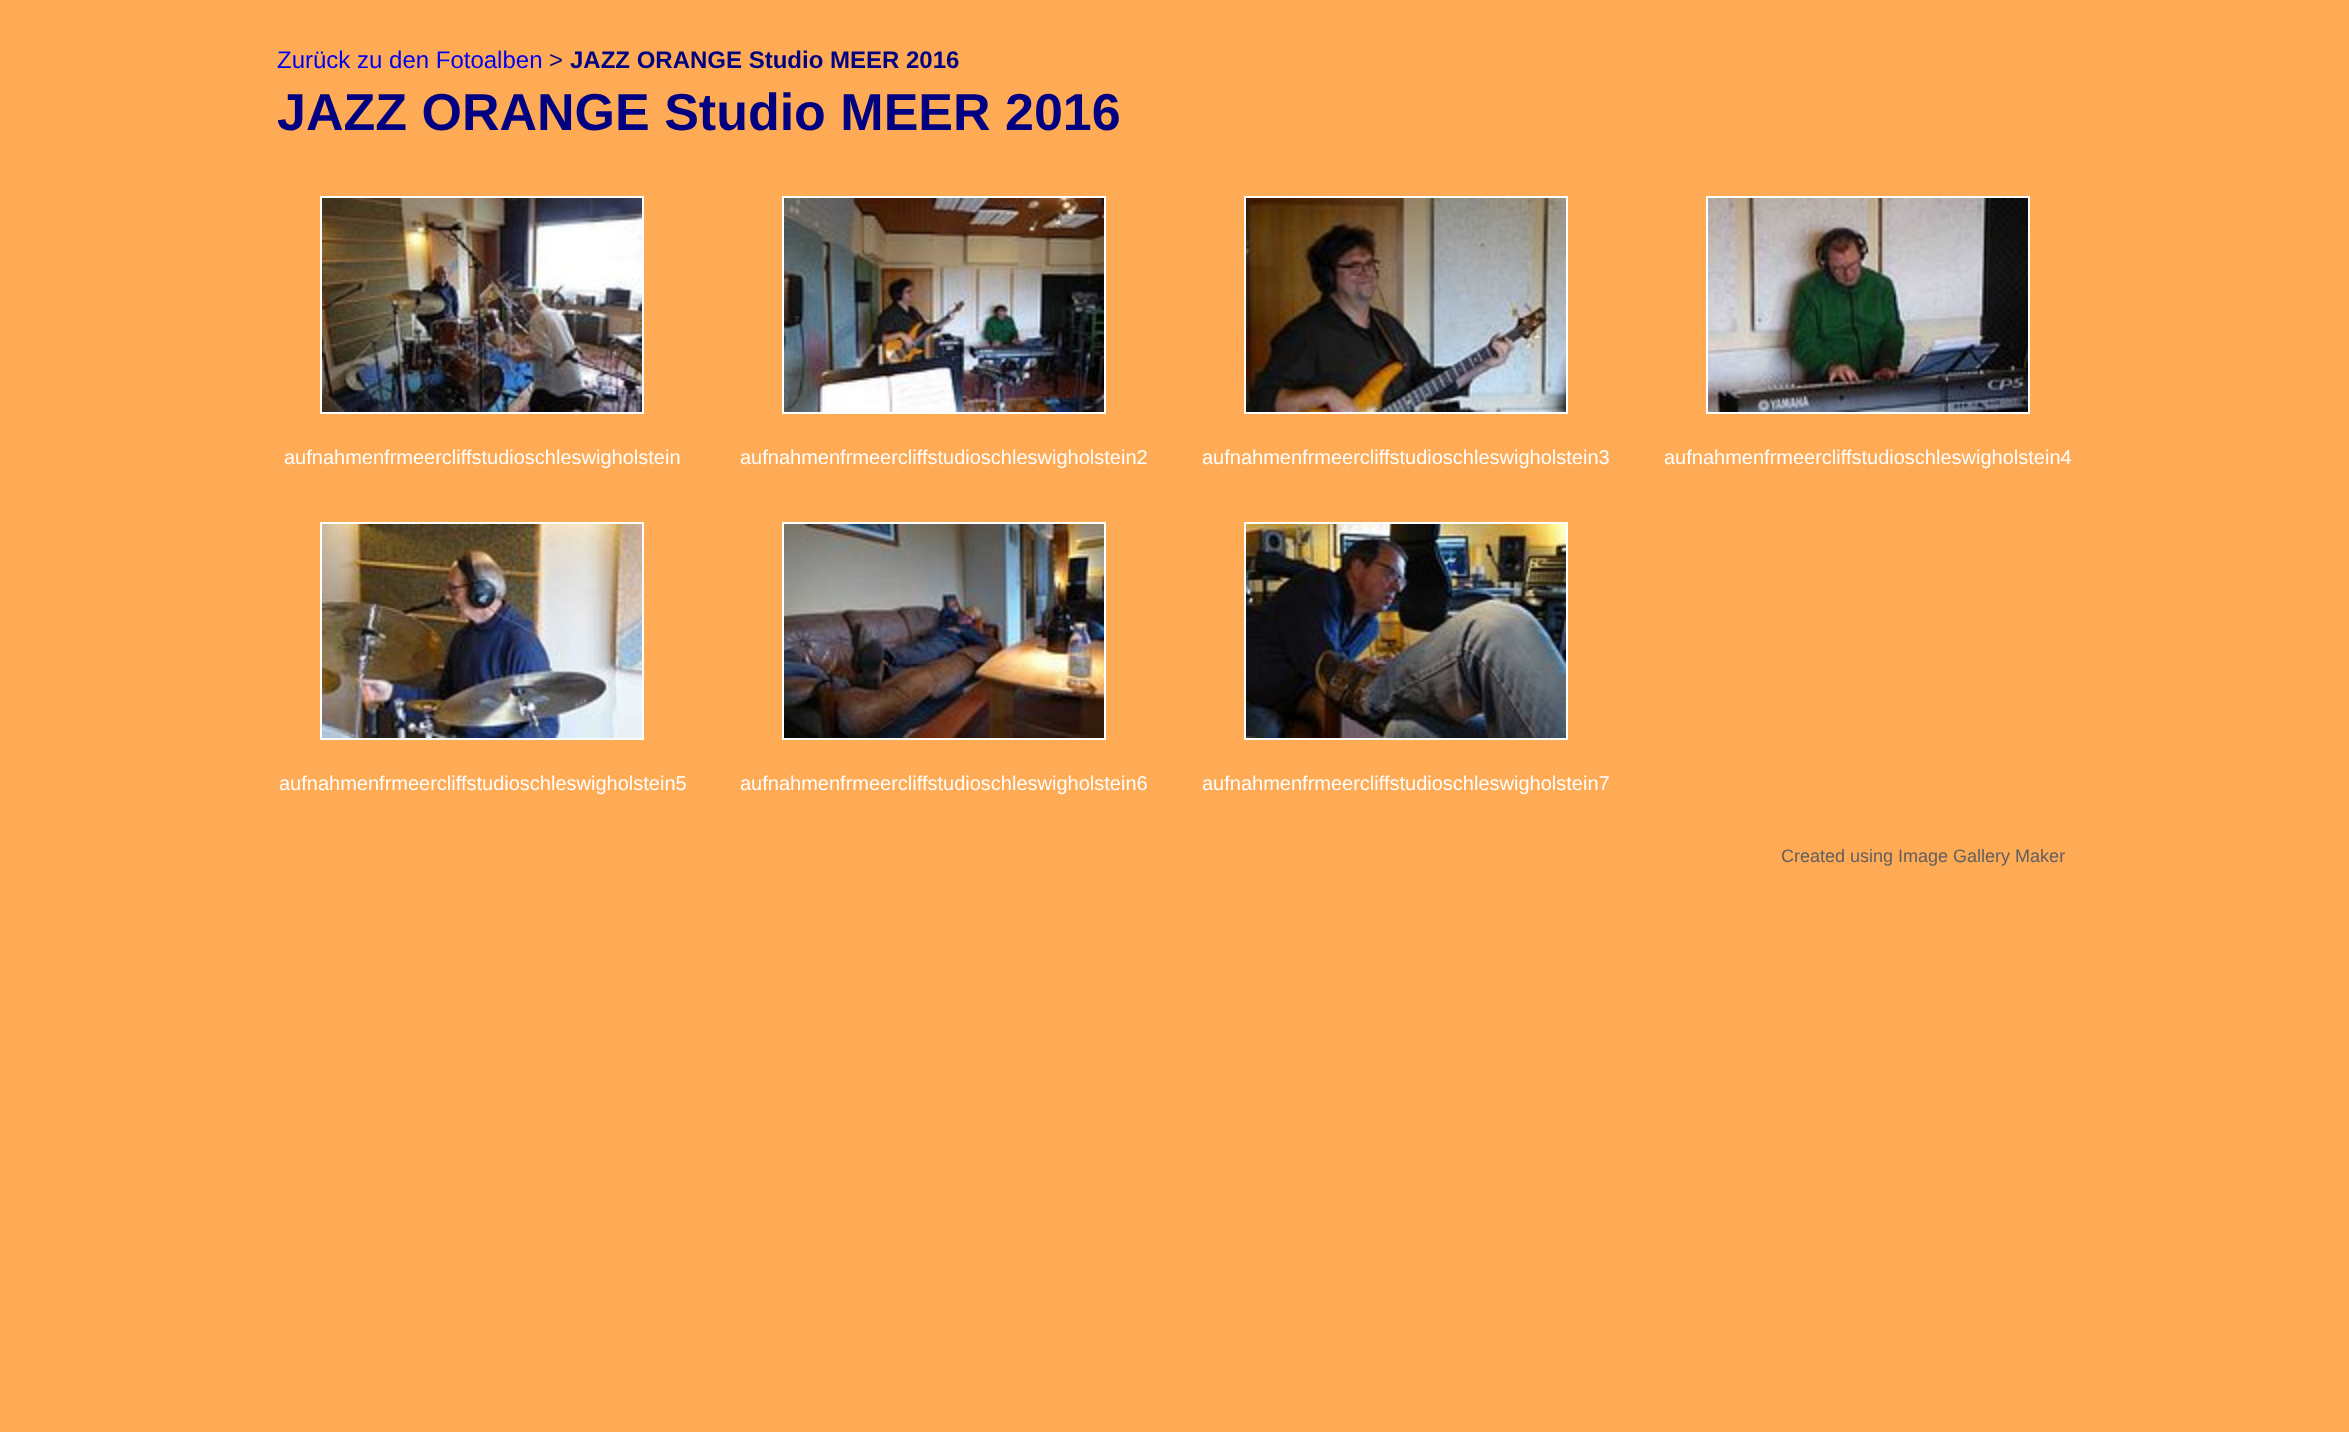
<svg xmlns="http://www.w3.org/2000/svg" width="2349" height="1432">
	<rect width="100%" height="100%" fill="#FFAA55" />
	<text x="277" y="68" font-family="Liberation Sans" font-size="24" fill="#0000EE">Zurück zu den Fotoalben</text>
	<text x="549" y="68" font-family="Liberation Sans" font-size="24" fill="#000080">&gt;</text>
	<text x="570" y="68" font-family="Liberation Sans" font-size="24" font-weight="700" fill="#000080">JAZZ ORANGE Studio MEER 2016</text>
	<text x="277" y="130" font-family="Liberation Sans" font-size="52" font-weight="700" fill="#000080">JAZZ ORANGE Studio MEER 2016</text>
	<rect x="321" y="197" width="322" height="216" fill="none" stroke="#FFFFFF" stroke-width="2" />
	<image x="322" y="198" width="320" height="214" href="assets/img1.png" />
	<text x="284" y="464" font-family="Liberation Sans" font-size="20" fill="#FFFFFF">aufnahmenfrmeercliffstudioschleswigholstein</text>
	<rect x="783" y="197" width="322" height="216" fill="none" stroke="#FFFFFF" stroke-width="2" />
	<image x="784" y="198" width="320" height="214" href="assets/img2.png" />
	<text x="740" y="464" font-family="Liberation Sans" font-size="20" fill="#FFFFFF">aufnahmenfrmeercliffstudioschleswigholstein2</text>
	<rect x="1245" y="197" width="322" height="216" fill="none" stroke="#FFFFFF" stroke-width="2" />
	<image x="1246" y="198" width="320" height="214" href="assets/img3.png" />
	<text x="1202" y="464" font-family="Liberation Sans" font-size="20" fill="#FFFFFF">aufnahmenfrmeercliffstudioschleswigholstein3</text>
	<rect x="1707" y="197" width="322" height="216" fill="none" stroke="#FFFFFF" stroke-width="2" />
	<image x="1708" y="198" width="320" height="214" href="assets/img4.png" />
	<text x="1664" y="464" font-family="Liberation Sans" font-size="20" fill="#FFFFFF">aufnahmenfrmeercliffstudioschleswigholstein4</text>
	<rect x="321" y="523" width="322" height="216" fill="none" stroke="#FFFFFF" stroke-width="2" />
	<image x="322" y="524" width="320" height="214" href="assets/img5.png" />
	<text x="279" y="790" font-family="Liberation Sans" font-size="20" fill="#FFFFFF">aufnahmenfrmeercliffstudioschleswigholstein5</text>
	<rect x="783" y="523" width="322" height="216" fill="none" stroke="#FFFFFF" stroke-width="2" />
	<image x="784" y="524" width="320" height="214" href="assets/img6.png" />
	<text x="740" y="790" font-family="Liberation Sans" font-size="20" fill="#FFFFFF">aufnahmenfrmeercliffstudioschleswigholstein6</text>
	<rect x="1245" y="523" width="322" height="216" fill="none" stroke="#FFFFFF" stroke-width="2" />
	<image x="1246" y="524" width="320" height="214" href="assets/img7.png" />
	<text x="1202" y="790" font-family="Liberation Sans" font-size="20" fill="#FFFFFF">aufnahmenfrmeercliffstudioschleswigholstein7</text>
	<text x="1781" y="862" font-family="Liberation Sans" font-size="18" fill="#606060">Created using Image Gallery Maker</text>
</svg>
